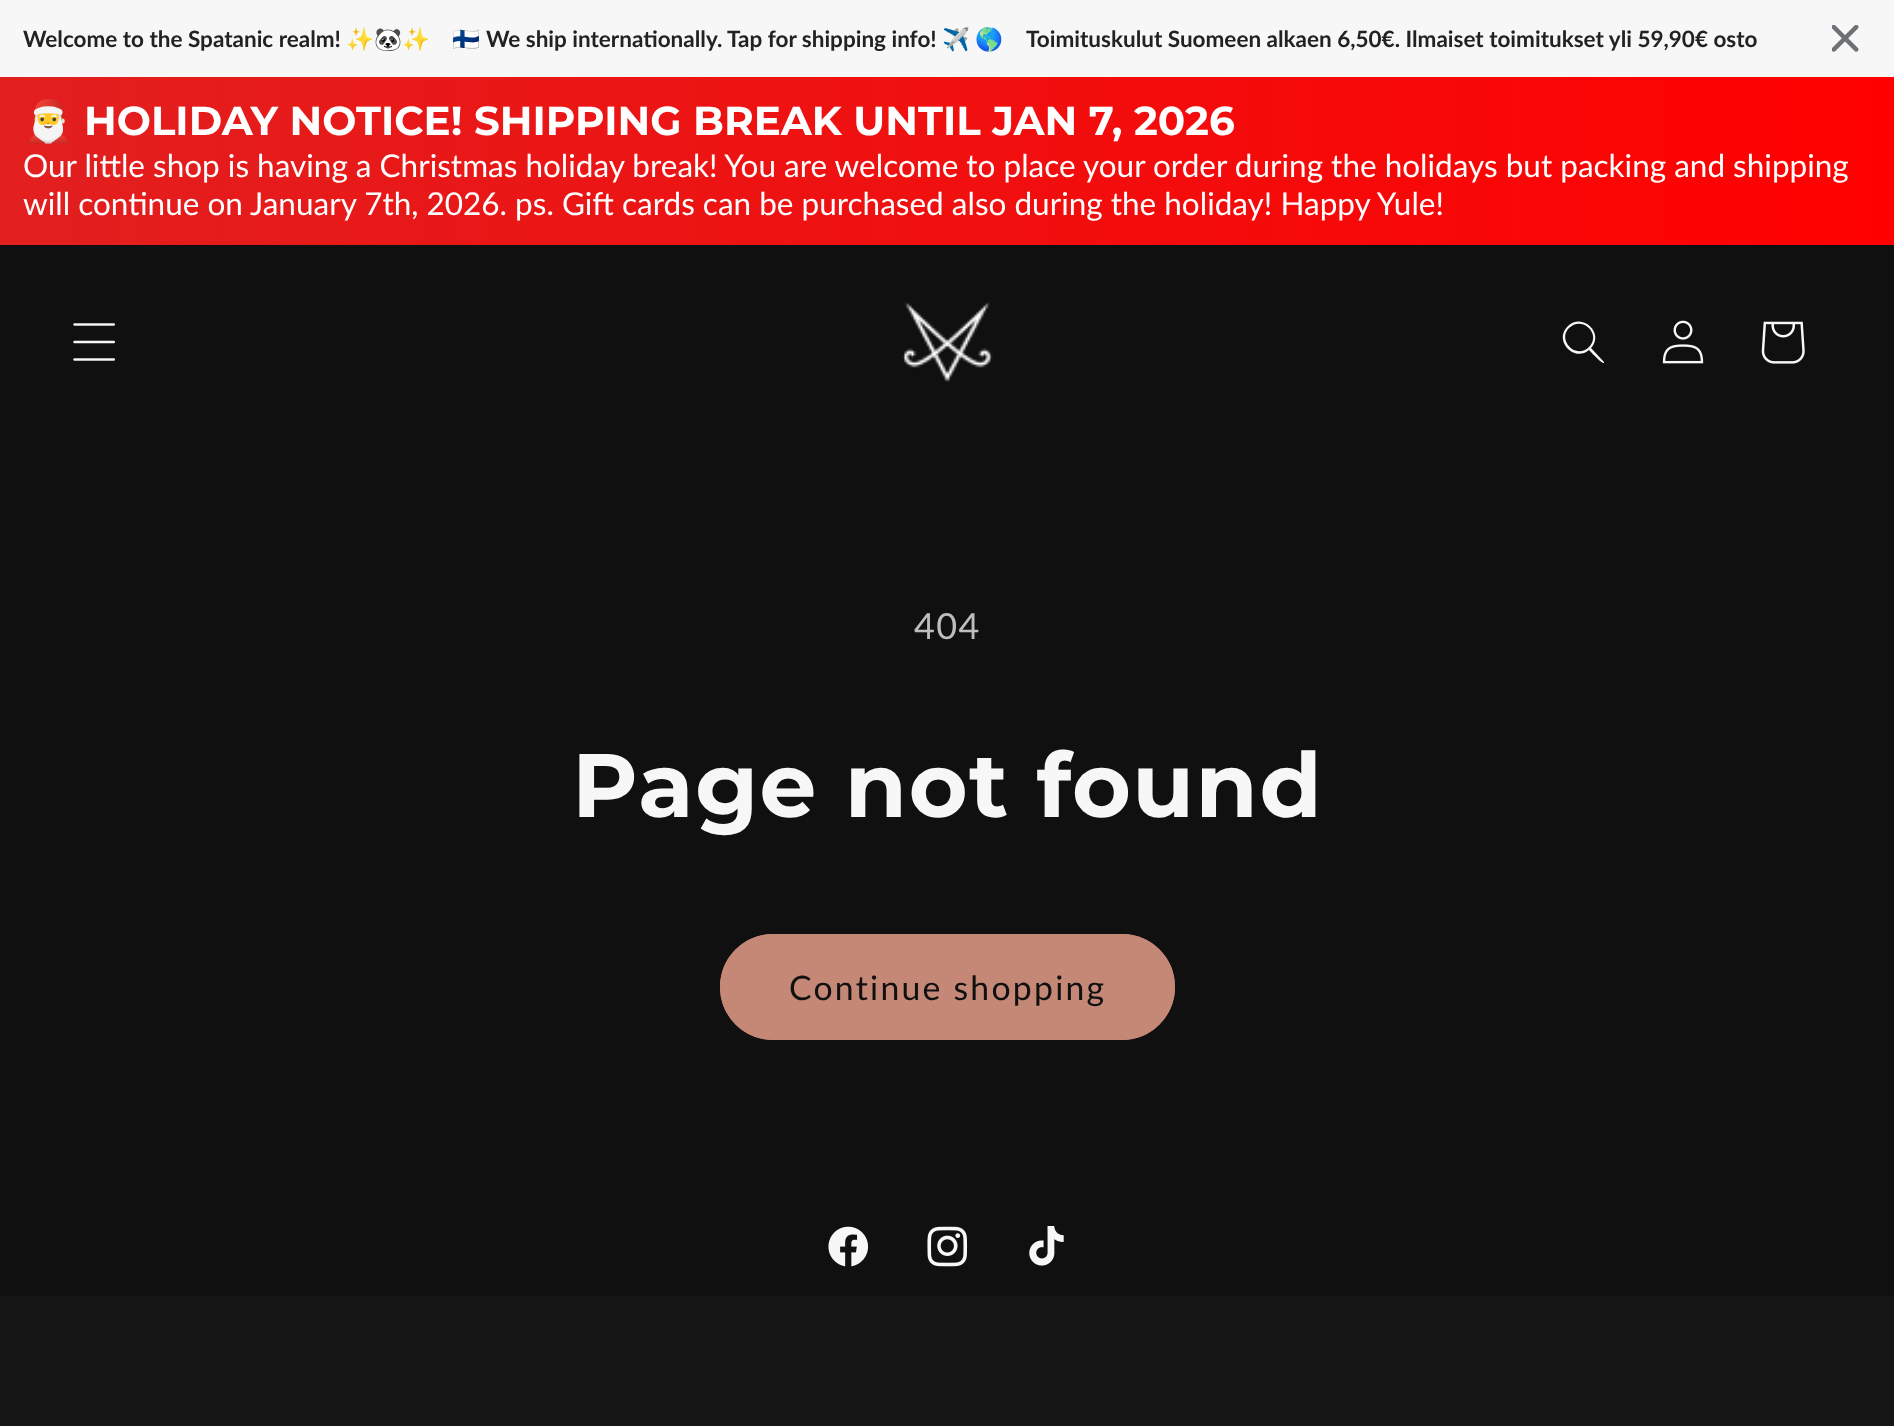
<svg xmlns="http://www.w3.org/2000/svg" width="1894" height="1426">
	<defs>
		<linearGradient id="g1" gradientUnits="userSpaceOnUse" x1="0" y1="161" x2="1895" y2="161"><stop offset="0" stop-color="#E21F1F" /><stop offset="1" stop-color="#FF0000" /></linearGradient>
		<clipPath id="clip1"><rect x="23" y="99" width="1849" height="124" /></clipPath>
	</defs>
	<rect width="100%" height="100%" fill="#101010" />
	<rect x="0" y="0" width="1894" height="77" fill="#F7F7F7" />
	<text x="23" y="47" font-family="Lato" font-size="22.5" font-weight="700" fill="#202223">Welcome to the Spatanic realm!</text>
	<g font-family="Noto Color Emoji" font-size="22.5" font-weight="700" fill="#202223">
		<text x="346" y="47">✨🐼✨</text>
		<text x="452" y="47">🇫🇮</text>
	</g>
	<text x="486" y="47" font-family="Lato" font-size="22.5" font-weight="700" fill="#202223">We ship internationally. Tap for shipping info!</text>
	<g font-family="Noto Color Emoji" font-size="22.5" font-weight="700" fill="#202223">
		<text x="942" y="47">✈️</text>
		<text x="975" y="47">🌎</text>
	</g>
	<text x="1026" y="47" font-family="Lato" font-size="22.5" font-weight="700" fill="#202223">Toimituskulut Suomeen alkaen 6,50€. Ilmaiset toimitukset yli 59,90€ osto</text>
	<image x="1832" y="25" width="27" height="27" href="assets/img1.png" />
	<rect x="0" y="77" width="1894" height="168" fill="url(#g1)" />
	<g clip-path="url(#clip1)">
		<text x="23" y="135" font-family="Noto Color Emoji" font-size="40.5" font-weight="700" fill="#FFFFFF">🎅</text>
	</g>
	<text x="84" y="135" font-family="Montserrat" font-size="40.5" font-weight="700" fill="#FFFFFF">HOLIDAY NOTICE! SHIPPING BREAK UNTIL JAN 7, 2026</text>
	<g font-family="Lato" font-size="31.5" fill="#FFFFFF">
		<text x="23" y="177">Our little shop is having a Christmas holiday break! You are welcome to place your order during the holidays but packing and shipping</text>
		<text x="23" y="215">will continue on January 7th, 2026. ps. Gift cards can be purchased also during the holiday! Happy Yule!</text>
	</g>
	<image x="73" y="323" width="42" height="38" href="assets/img2.png" />
	<image x="902" y="301" width="91" height="82" href="assets/img3.png" />
	<path d="M1589 347C1576 360 1557 340 1569 328C1582 315 1602 334 1589 347ZM1589 350C1574 363 1553 340 1568 326C1582 312 1605 333 1591 348L1604 362V363C1602 364 1591 352 1589 350Z" fill="#F7F7F7" fill-rule="evenodd" />
	<image x="1662" y="320" width="42" height="44" href="assets/img4.png" />
	<image x="1761" y="321" width="44" height="43" href="assets/img5.png" />
	<text x="914" y="639" font-family="Lato" font-size="36" letter-spacing="1.4" fill="#BDBDBD">404</text>
	<text x="572" y="817" font-family="Montserrat" font-size="90" font-weight="700" letter-spacing="1.4" fill="#F7F7F7">Page not found</text>
	<rect x="720" y="934" width="455" height="106" rx="53" fill="#C58876" />
	<rect x="721" y="935" width="453" height="104" rx="52" fill="none" stroke="#C58876" stroke-width="2" />
	<text x="789" y="1000" font-family="Lato" font-size="33.75" letter-spacing="2.25" fill="#101010">Continue shopping</text>
	<image x="828" y="1226" width="41" height="41" href="assets/img6.png" />
	<image x="927" y="1226" width="41" height="41" href="assets/img7.png" />
	<image x="1029" y="1226" width="35" height="40" href="assets/img8.png" />
	<rect x="0" y="1296" width="1894" height="130" fill="#161616" />
</svg>
